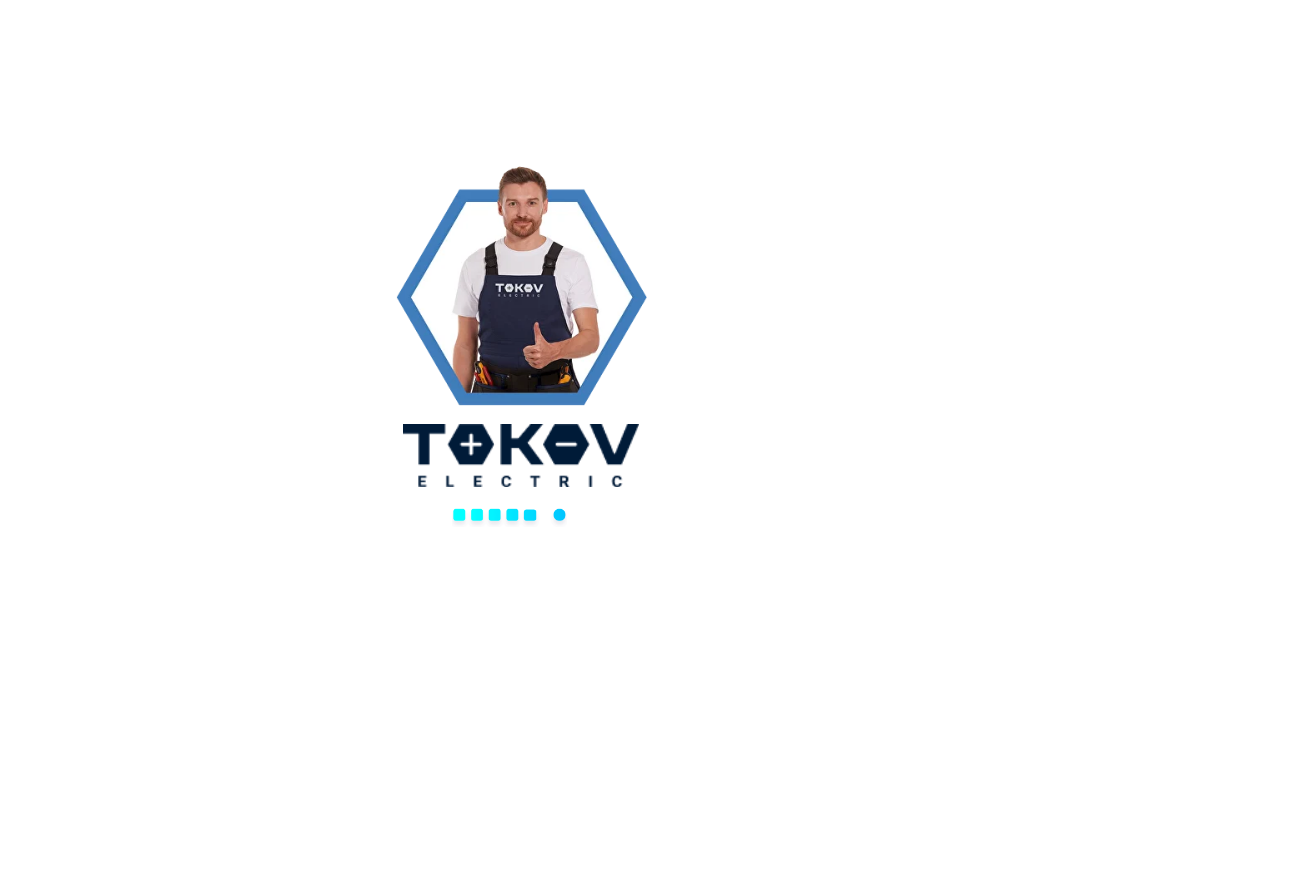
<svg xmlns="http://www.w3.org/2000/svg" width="1301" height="874">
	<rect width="100%" height="100%" fill="#FFFFFF" />
	<image x="396" y="166" width="251" height="240" href="assets/img1.png" />
	<image x="403" y="424" width="236" height="63" href="assets/img2.png" />
	<image x="452" y="508" width="115" height="19" href="assets/img3.png" />
</svg>
